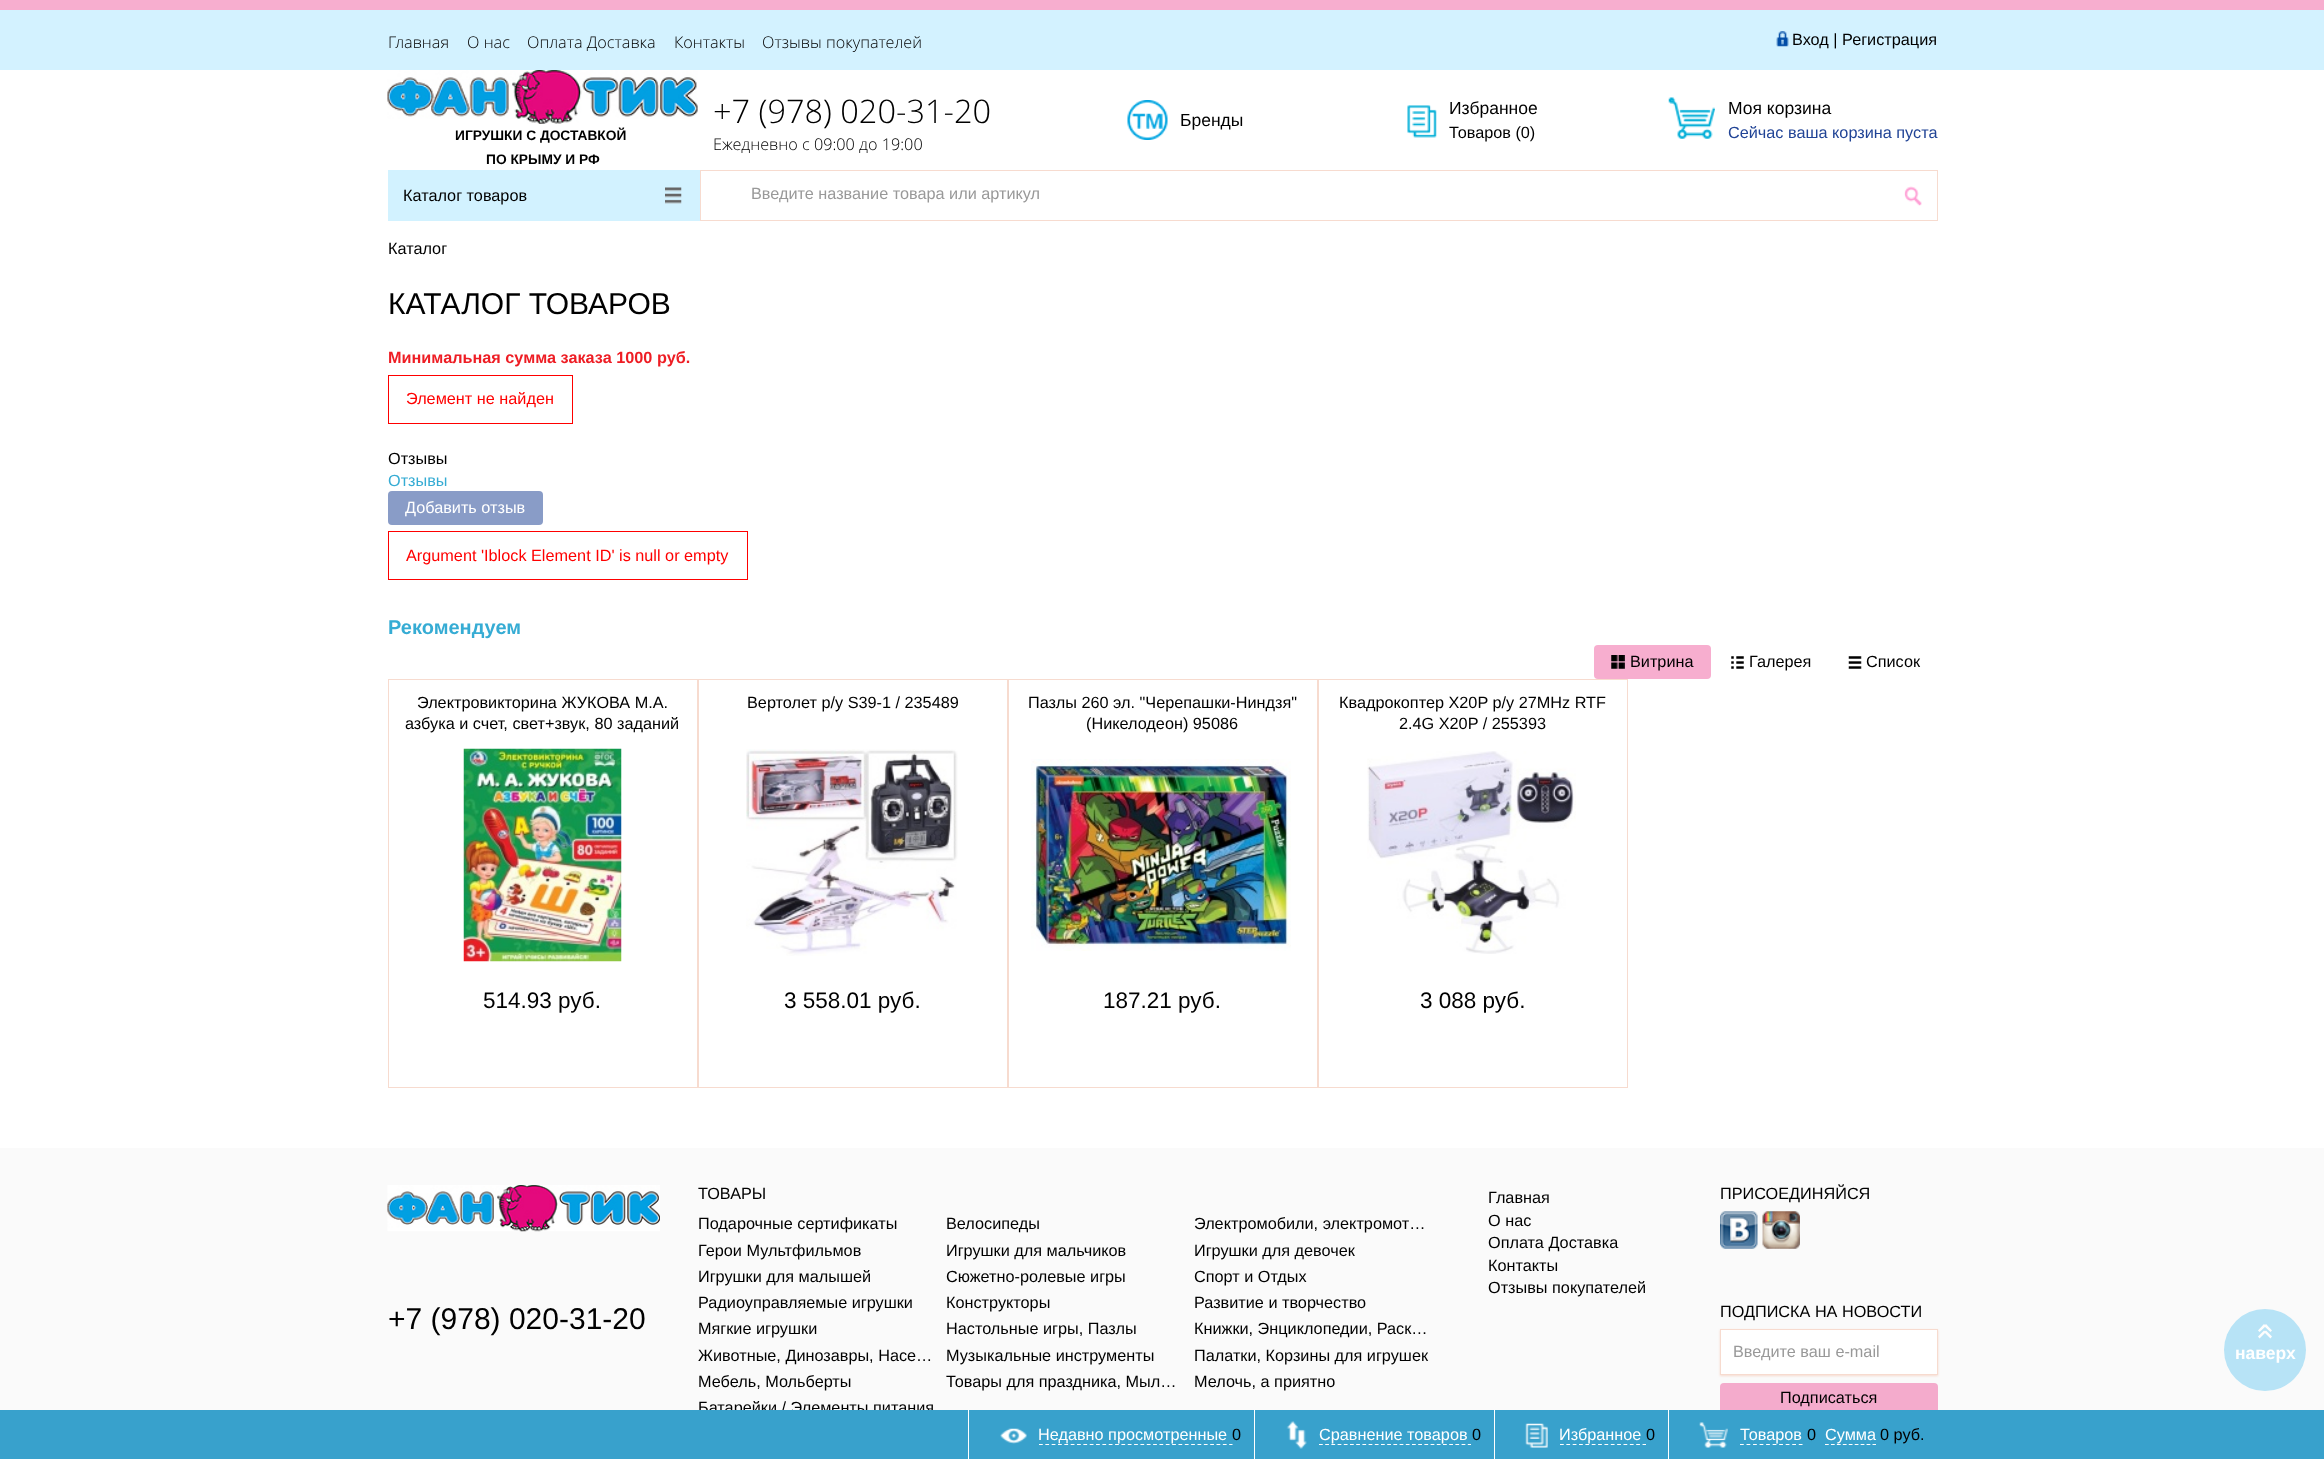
<svg xmlns="http://www.w3.org/2000/svg" width="2324" height="1459">
	<rect width="100%" height="100%" fill="#FFFFFF" />
	<rect x="0" y="0" width="2324" height="10" fill="#F7AECF" />
	<rect x="0" y="10" width="2324" height="60" fill="#D3F2FF" />
	<g font-family="Open Sans" font-size="16.25" font-weight="300" fill="#000000">
		<text x="388" y="48">Главная</text>
		<text x="467" y="48">О нас</text>
		<text x="527" y="48">Оплата Доставка</text>
		<text x="674" y="48">Контакты</text>
		<text x="762" y="48">Отзывы покупателей</text>
	</g>
	<image x="1776" y="31" width="13" height="16" href="assets/img1.png" />
	<text x="1792" y="45" font-family="Liberation Sans" font-size="16.25" fill="#000000">Вход | Регистрация</text>
	<text x="713" y="123" font-family="Open Sans" font-size="32.5" font-weight="300" fill="#000000">+7 (978) 020-31-20</text>
	<text x="713" y="150" font-family="Open Sans" font-size="16.25" font-weight="300" fill="#000000">Ежедневно с 09:00 до 19:00</text>
	<image x="1127" y="100" width="41" height="40" href="assets/img2.png" />
	<text x="1180" y="126" font-family="Liberation Sans" font-size="17.5" fill="#000000">Бренды</text>
	<image x="1407" y="105" width="30" height="33" href="assets/img3.png" />
	<text x="1449" y="114" font-family="Liberation Sans" font-size="17.5" fill="#000000">Избранное</text>
	<text x="1449" y="138" font-family="Liberation Sans" font-size="16.25" fill="#000000">Товаров (0)</text>
	<image x="1668" y="97" width="47" height="42" href="assets/img4.png" />
	<text x="1728" y="114" font-family="Liberation Sans" font-size="17.5" fill="#000000">Моя корзина</text>
	<text x="1728" y="138" font-family="Liberation Sans" font-size="16.25" fill="#214496">Сейчас ваша корзина пуста</text>
	<image x="387" y="70" width="311" height="54" href="assets/img5.png" />
	<g font-family="Liberation Sans" font-size="13.75" font-weight="700" fill="#000000">
		<text x="455" y="140">ИГРУШКИ С ДОСТАВКОЙ</text>
		<text x="486" y="164">ПО КРЫМУ И РФ</text>
	</g>
	<rect x="388" y="170" width="312" height="51" fill="#D2F2FF" />
	<text x="403" y="201" font-family="Liberation Sans" font-size="16.25" fill="#000000">Каталог товаров</text>
	<image x="665" y="187" width="17" height="17" href="assets/img6.png" />
	<rect x="700.5" y="170.5" width="1237" height="50" fill="none" stroke="#F7DBCF" />
	<text x="751" y="199" font-family="Liberation Sans" font-size="16.25" fill="#999999">Введите название товара или артикул</text>
	<image x="1904" y="186" width="18" height="20" href="assets/img7.png" />
	<text x="388" y="254" font-family="Liberation Sans" font-size="16.25" fill="#000000">Каталог</text>
	<text x="388" y="314" font-family="Liberation Sans" font-size="30" fill="#000000">КАТАЛОГ ТОВАРОВ</text>
	<text x="388" y="363" font-family="Liberation Sans" font-size="16.25" font-weight="700" fill="#EE1D24">Минимальная сумма заказа 1000 руб.</text>
	<rect x="388.5" y="375.5" width="184" height="48" fill="none" stroke="#FF0000" />
	<text x="406" y="404" font-family="Liberation Sans" font-size="16.25" fill="#FF0000">Элемент не найден</text>
	<text x="388" y="464" font-family="Liberation Sans" font-size="16.25" fill="#000000">Отзывы</text>
	<text x="388" y="486" font-family="Liberation Sans" font-size="16.25" fill="#36ACD4">Отзывы</text>
	<rect x="388" y="491" width="155" height="34" rx="4" fill="#899CC7" />
	<text x="405" y="513" font-family="Liberation Sans" font-size="16.25" fill="#FFFFFF">Добавить отзыв</text>
	<rect x="388.5" y="531.5" width="359" height="48" fill="none" stroke="#FF0000" />
	<text x="406" y="561" font-family="Liberation Sans" font-size="16.25" fill="#FF0000">Argument 'Iblock Element ID' is null or empty</text>
	<text x="388" y="634" font-family="Liberation Sans" font-size="20" font-weight="700" fill="#36ACD4">Рекомендуем</text>
	<rect x="1594" y="645" width="117" height="34" rx="4" fill="#F7AECF" />
	<image x="1611" y="655" width="14" height="14" href="assets/img8.png" />
	<text x="1630" y="667" font-family="Liberation Sans" font-size="16.25" fill="#000000">Витрина</text>
	<image x="1731" y="656" width="13" height="13" href="assets/img9.png" />
	<text x="1749" y="667" font-family="Liberation Sans" font-size="16.25" fill="#000000">Галерея</text>
	<image x="1848" y="656" width="14" height="13" href="assets/img10.png" />
	<text x="1866" y="667" font-family="Liberation Sans" font-size="16.25" fill="#000000">Список</text>
	<rect x="388.5" y="679.5" width="309" height="408" fill="none" stroke="#F7DBCF" />
	<g font-family="Liberation Sans" font-size="16.25" fill="#000000">
		<text x="417" y="708">Электровикторина ЖУКОВА М.А.</text>
		<text x="405" y="729">азбука и счет, свет+звук, 80 заданий</text>
	</g>
	<image x="463" y="748" width="159" height="214" href="assets/img11.png" />
	<text x="483" y="1008" font-family="Liberation Sans" font-size="22.5" fill="#000000">514.93 руб.</text>
	<rect x="698.5" y="679.5" width="309" height="408" fill="none" stroke="#F7DBCF" />
	<text x="747" y="708" font-family="Liberation Sans" font-size="16.25" fill="#000000">Вертолет р/у S39-1 / 235489</text>
	<image x="746" y="749" width="212" height="207" href="assets/img12.png" />
	<text x="784" y="1008" font-family="Liberation Sans" font-size="22.5" fill="#000000">3 558.01 руб.</text>
	<rect x="1008.5" y="679.5" width="309" height="408" fill="none" stroke="#F7DBCF" />
	<g font-family="Liberation Sans" font-size="16.25" fill="#000000">
		<text x="1028" y="708">Пазлы 260 эл. "Черепашки-Ниндзя"</text>
		<text x="1086" y="729">(Никелодеон) 95086</text>
	</g>
	<image x="1031" y="759" width="260" height="192" href="assets/img13.png" />
	<text x="1103" y="1008" font-family="Liberation Sans" font-size="22.5" fill="#000000">187.21 руб.</text>
	<rect x="1318.5" y="679.5" width="309" height="408" fill="none" stroke="#F7DBCF" />
	<g font-family="Liberation Sans" font-size="16.25" fill="#000000">
		<text x="1339" y="708">Квадрокоптер X20P р/у 27MHz RTF</text>
		<text x="1399" y="729">2.4G X20P / 255393</text>
	</g>
	<image x="1367" y="751" width="209" height="203" href="assets/img14.png" />
	<text x="1420" y="1008" font-family="Liberation Sans" font-size="22.5" fill="#000000">3 088 руб.</text>
	<rect x="0" y="1148" width="2324" height="262" fill="#FAFAFA" />
	<g font-family="Liberation Sans" font-size="16.25" fill="#000000">
		<text x="698" y="1199">ТОВАРЫ</text>
		<text x="698" y="1229">Подарочные сертификаты</text>
		<text x="946" y="1229">Велосипеды</text>
		<text x="1194" y="1229">Электромобили, электромот…</text>
		<text x="698" y="1256">Герои Мультфильмов</text>
		<text x="946" y="1256">Игрушки для мальчиков</text>
		<text x="1194" y="1256">Игрушки для девочек</text>
		<text x="698" y="1282">Игрушки для малышей</text>
		<text x="946" y="1282">Сюжетно-ролевые игры</text>
		<text x="1194" y="1282">Спорт и Отдых</text>
		<text x="698" y="1308">Радиоуправляемые игрушки</text>
		<text x="946" y="1308">Конструкторы</text>
		<text x="1194" y="1308">Развитие и творчество</text>
		<text x="698" y="1334">Мягкие игрушки</text>
		<text x="946" y="1334">Настольные игры, Пазлы</text>
		<text x="1194" y="1334">Книжки, Энциклопедии, Раск…</text>
		<text x="698" y="1361">Животные, Динозавры, Насе…</text>
		<text x="946" y="1361">Музыкальные инструменты</text>
		<text x="1194" y="1361">Палатки, Корзины для игрушек</text>
		<text x="698" y="1387">Мебель, Мольберты</text>
		<text x="946" y="1387">Товары для праздника, Мыл…</text>
		<text x="1194" y="1387">Мелочь, а приятно</text>
		<text x="698" y="1413">Батарейки / Элементы питания</text>
		<text x="1488" y="1203">Главная</text>
		<text x="1488" y="1226">О нас</text>
		<text x="1488" y="1248">Оплата Доставка</text>
		<text x="1488" y="1271">Контакты</text>
		<text x="1488" y="1293">Отзывы покупателей</text>
		<text x="1720" y="1199">ПРИСОЕДИНЯЙСЯ</text>
	</g>
	<image x="1720" y="1211" width="38" height="38" href="assets/img15.png" />
	<image x="1762" y="1211" width="38" height="38" href="assets/img16.png" />
	<text x="1720" y="1317" font-family="Liberation Sans" font-size="16.25" fill="#000000">ПОДПИСКА НА НОВОСТИ</text>
	<rect x="1720" y="1330" width="218" height="46" fill="#F7DBCF" filter="blur(1px)" />
	<rect x="1720.5" y="1329.5" width="217" height="45" fill="#FFFFFF" stroke="#F7DBCF" />
	<text x="1733" y="1357" font-family="Liberation Sans" font-size="16.25" fill="#999999">Введите ваш e-mail</text>
	<rect x="1720" y="1383" width="218" height="31" rx="4" fill="#F4ABCC" />
	<text x="1780" y="1403" font-family="Liberation Sans" font-size="16.25" fill="#000000">Подписаться</text>
	<image x="387" y="1185" width="273" height="47" href="assets/img17.png" />
	<text x="388" y="1329" font-family="Liberation Sans" font-size="30" fill="#000000">+7 (978) 020-31-20</text>
	<circle cx="2265" cy="1350" r="41" fill="#B7E3F6" />
	<path d="M2264 1324L2266 1326L2259.5 1332L2258 1330.5Z" fill="#FDFDFD" />
	<path d="M2264 1326L2266 1324L2272 1330.5L2270.5 1332Z" fill="#FDFDFD" />
	<path d="M2264 1330.5L2266 1332L2259.5 1338.5L2258 1336.5Z" fill="#FDFDFD" />
	<path d="M2264 1332L2266 1330.5L2272 1336.5L2270.5 1338.5Z" fill="#FDFDFD" />
	<text x="2235" y="1359" font-family="Liberation Sans" font-size="17.5" font-weight="700" fill="#FFFFFF">наверх</text>
	<rect x="0" y="1410" width="2324" height="49" fill="#38A1CC" />
	<rect x="968" y="1410" width="1" height="49" fill="#FFFFFF" />
	<image x="1000" y="1428" width="27" height="16" href="assets/img18.png" />
	<path d="M1039 1444.5H1232.5" fill="none" stroke="#FFFFFF" stroke-width="1.2" stroke-dasharray="3.75 2.59" />
	<text x="1038" y="1440" font-family="Liberation Sans" font-size="16.25" fill="#FFFFFF">Недавно просмотренные</text>
	<text x="1232" y="1440" font-family="Liberation Sans" font-size="16.25" fill="#000000">0</text>
	<rect x="1254" y="1410" width="1" height="49" fill="#FFFFFF" />
	<image x="1286" y="1421" width="21" height="28" href="assets/img19.png" />
	<path d="M1319 1444.5H1471" fill="none" stroke="#FFFFFF" stroke-width="1.2" stroke-dasharray="3.75 2.45" />
	<text x="1319" y="1440" font-family="Liberation Sans" font-size="16.25" fill="#FFFFFF">Сравнение товаров</text>
	<text x="1472" y="1440" font-family="Liberation Sans" font-size="16.25" fill="#000000">0</text>
	<rect x="1494" y="1410" width="1" height="49" fill="#FFFFFF" />
	<image x="1525" y="1423" width="23" height="25" href="assets/img20.png" />
	<path d="M1560 1444.5H1646" fill="none" stroke="#FFFFFF" stroke-width="1.2" stroke-dasharray="3.75 2.6" />
	<text x="1559" y="1440" font-family="Liberation Sans" font-size="16.25" fill="#FFFFFF">Избранное</text>
	<text x="1646" y="1440" font-family="Liberation Sans" font-size="16.25" fill="#000000">0</text>
	<rect x="1668" y="1410" width="1" height="49" fill="#FFFFFF" />
	<image x="1699" y="1422" width="29" height="26" href="assets/img21.png" />
	<path d="M1740 1444.5H1802.5" fill="none" stroke="#FFFFFF" stroke-width="1.2" stroke-dasharray="3.75 2.78" />
	<text x="1740" y="1440" font-family="Liberation Sans" font-size="16.25" fill="#FFFFFF">Товаров</text>
	<text x="1807" y="1440" font-family="Liberation Sans" font-size="16.25" fill="#000000">0</text>
	<path d="M1825 1444.5H1876" fill="none" stroke="#FFFFFF" stroke-width="1.2" stroke-dasharray="3.75 2.19" />
	<text x="1825" y="1440" font-family="Liberation Sans" font-size="16.25" fill="#FFFFFF">Сумма</text>
	<text x="1880" y="1440" font-family="Liberation Sans" font-size="16.25" fill="#000000">0 руб.</text>
</svg>
